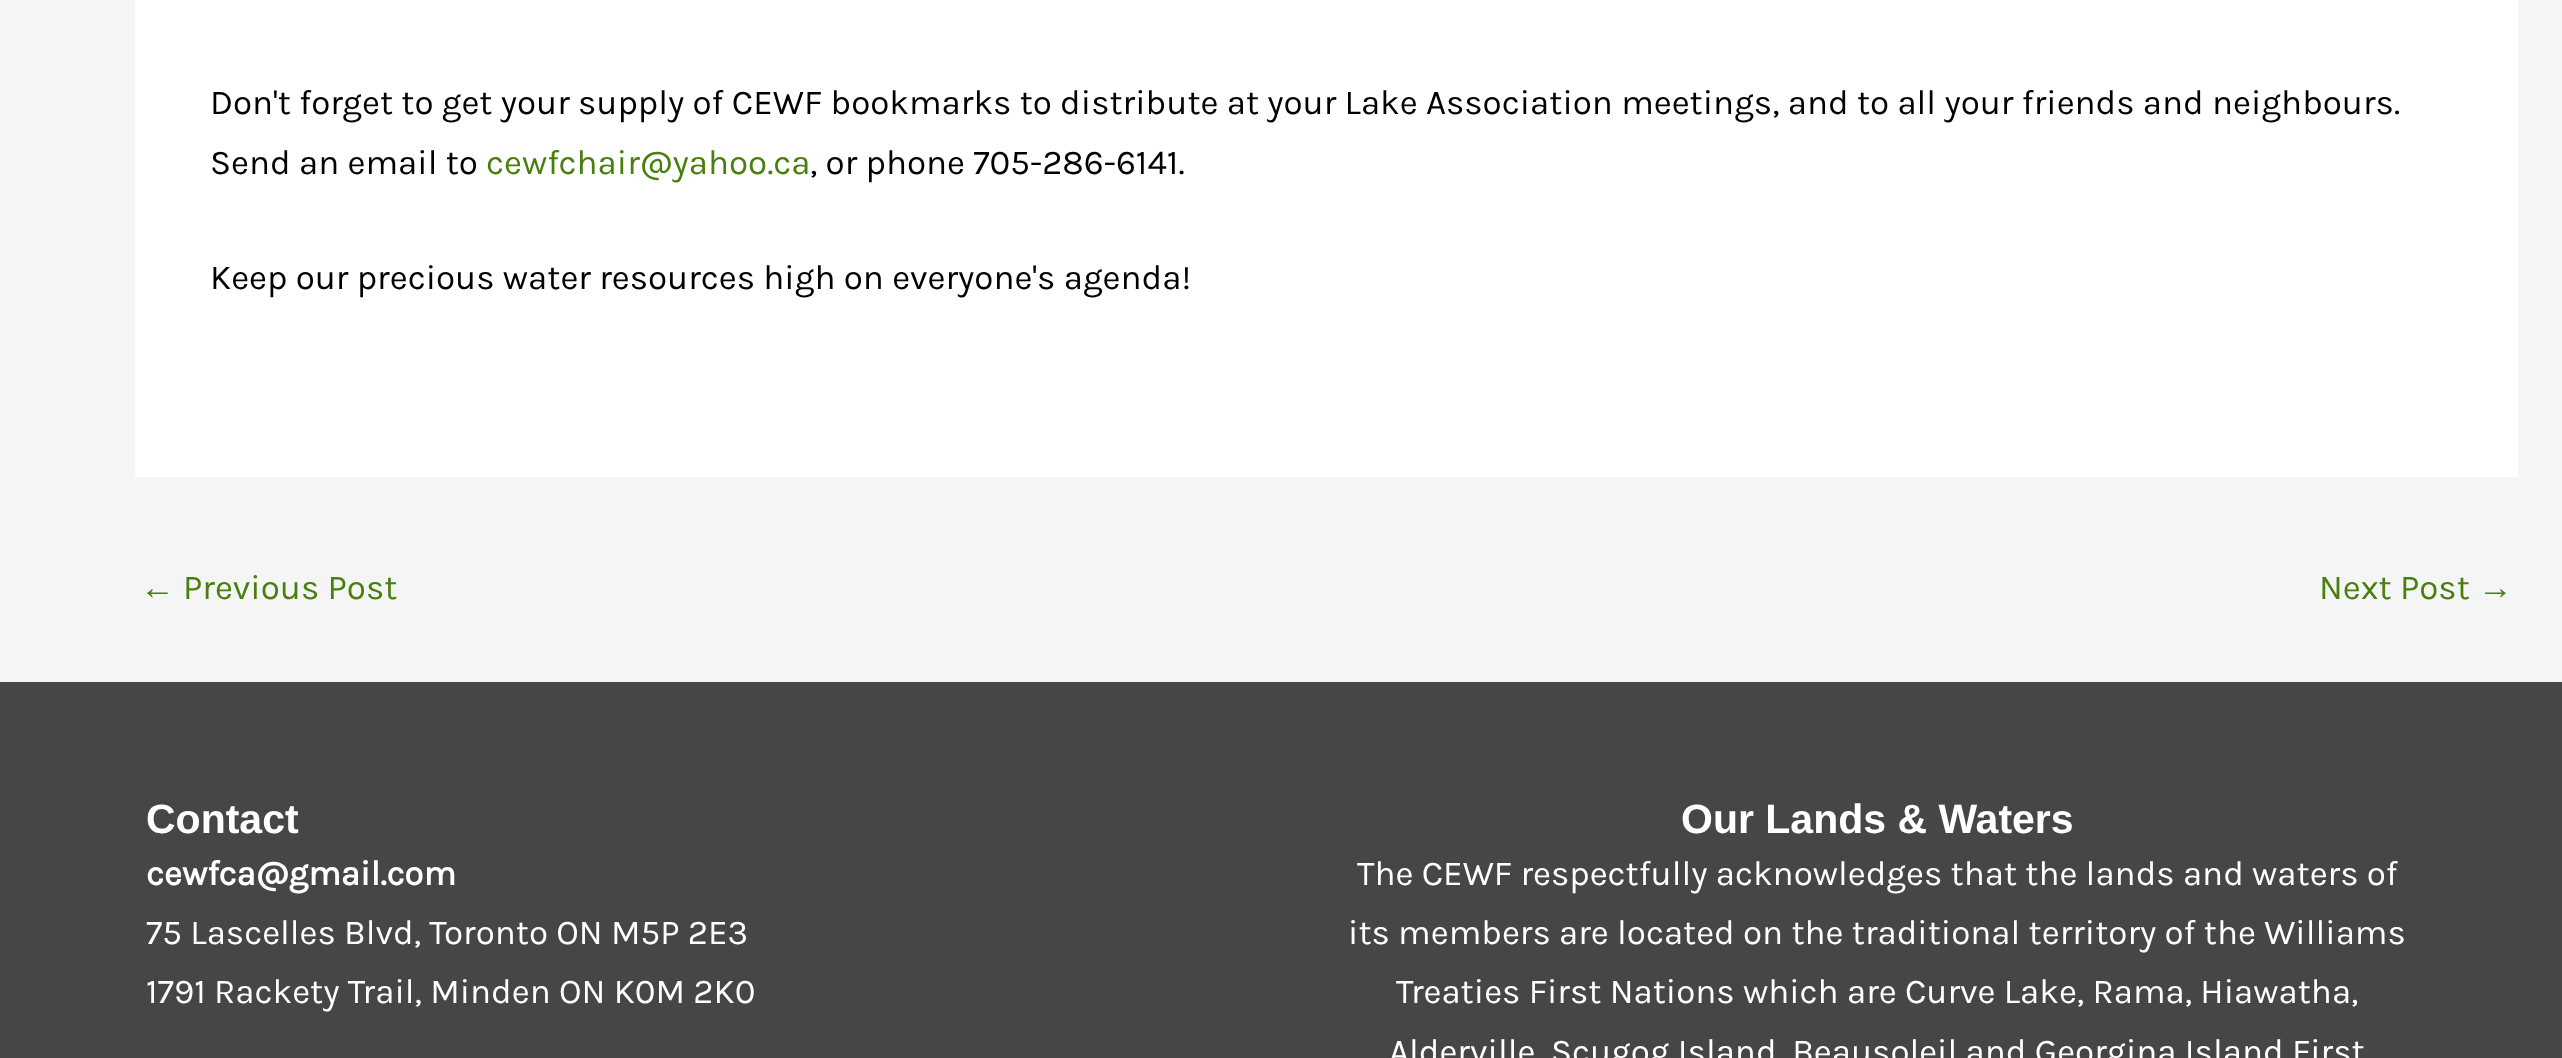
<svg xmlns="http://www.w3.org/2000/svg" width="2562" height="1058">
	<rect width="100%" height="100%" fill="#F5F5F5" />
	<rect x="135" y="0" width="2383" height="477" fill="#FFFFFF" />
	<g font-family="Karla" font-size="34.88" fill="#000000">
		<text x="210" y="114">Don't forget to get your supply of CEWF bookmarks to distribute at your Lake Association meetings, and to all your friends and neighbours.</text>
		<text x="210" y="174">Send an email to</text>
	</g>
	<text x="486" y="174" font-family="Karla" font-size="34.88" fill="#487F0E">cewfchair@yahoo.ca</text>
	<g font-family="Karla" font-size="34.88" fill="#000000">
		<text x="810" y="174">, or phone 705-286-6141.</text>
		<text x="210" y="289">Keep our precious water resources high on everyone's agenda!</text>
	</g>
	<text x="140" y="599" font-family="Liberation Sans" font-size="34.88" fill="#487F0E">←</text>
	<g font-family="Karla" font-size="34.88" fill="#487F0E">
		<text x="183" y="599">Previous Post</text>
		<text x="2319" y="599">Next Post</text>
	</g>
	<text x="2478" y="599" font-family="Liberation Sans" font-size="34.88" fill="#487F0E">→</text>
	<rect x="0" y="682" width="2562" height="376" fill="#464646" />
	<text x="146" y="833" font-family="Liberation Sans" font-size="41" font-weight="700" fill="#FFFFFF">Contact</text>
	<text x="146" y="885" font-family="Karla" font-size="34.88" font-weight="700" fill="#FFFFFF">cewfca@gmail.com</text>
	<g font-family="Karla" font-size="34.88" fill="#FFFFFF">
		<text x="146" y="944">75 Lascelles Blvd, Toronto ON M5P 2E3</text>
		<text x="146" y="1003">1791 Rackety Trail, Minden ON K0M 2K0</text>
	</g>
	<text x="1681" y="833" font-family="Liberation Sans" font-size="41" font-weight="700" fill="#FFFFFF">Our Lands &amp; Waters</text>
	<g font-family="Karla" font-size="34.88" fill="#FFFFFF">
		<text x="1357" y="885">The CEWF respectfully acknowledges that the lands and waters of</text>
		<text x="1348" y="944">its members are located on the traditional territory of the Williams</text>
		<text x="1396" y="1003">Treaties First Nations which are Curve Lake, Rama, Hiawatha,</text>
		<text x="1389" y="1063">Alderville, Scugog Island, Beausoleil and Georgina Island First</text>
	</g>
</svg>
